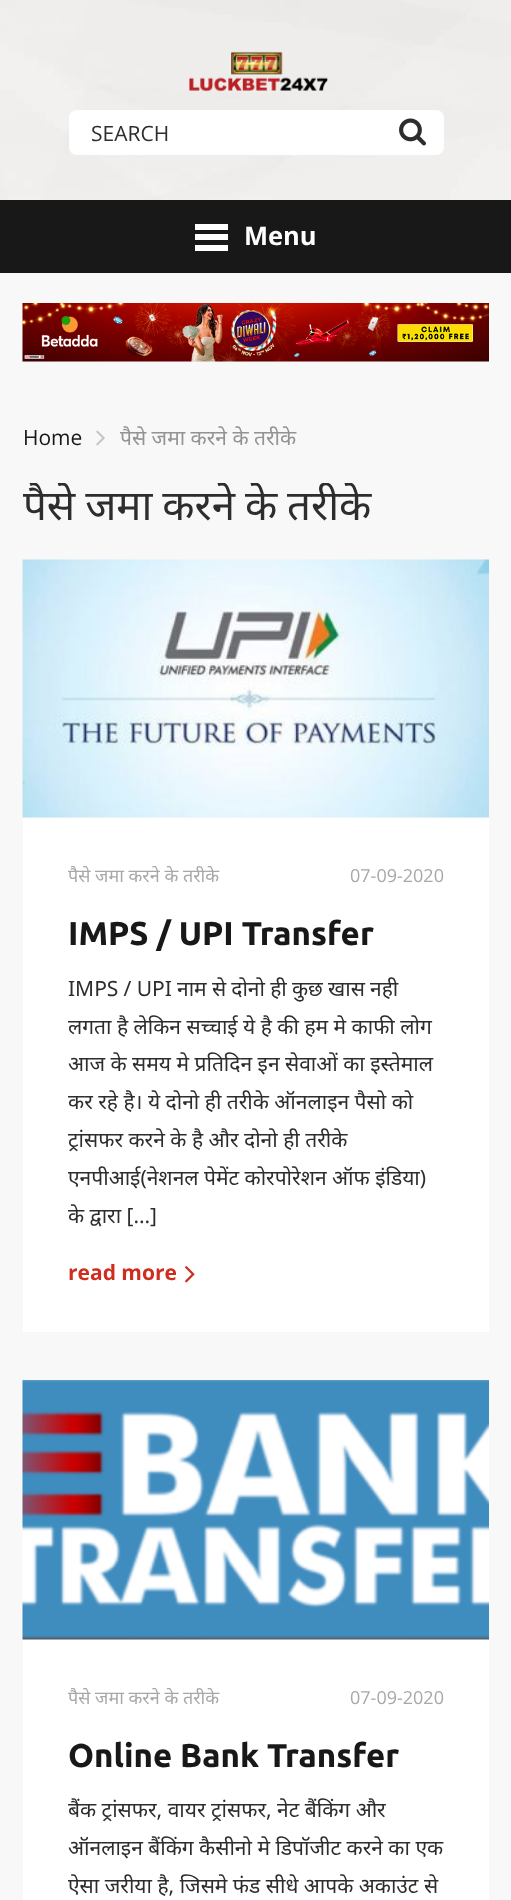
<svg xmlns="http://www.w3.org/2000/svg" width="511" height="1900">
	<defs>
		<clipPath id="clip1"><rect x="0" y="483" width="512" height="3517" /></clipPath>
	</defs>
	<rect width="100%" height="100%" fill="#F8F8F8" />
	<image x="0" y="0" width="511" height="200" href="assets/img1.png" />
	<image x="189" y="51" width="139" height="41" href="assets/img2.png" />
	<rect x="69" y="110" width="375" height="45" rx="8" fill="#FFFFFF" />
	<text x="91" y="141" font-family="Open Sans" font-size="21" fill="#2D2D2C">SEARCH</text>
	<image x="399" y="118" width="27" height="28" href="assets/img3.png" />
	<rect x="0" y="200" width="511" height="73" fill="#181818" />
	<rect x="195" y="224" width="33" height="6" fill="#FFFFFF" />
	<rect x="195" y="234" width="33" height="6" fill="#FFFFFF" />
	<rect x="195" y="245" width="33" height="6" fill="#FFFFFF" />
	<text x="244" y="245" font-family="Open Sans" font-size="25.5" font-weight="700" fill="#FFFFFF">Menu</text>
	<image x="22" y="303" width="467" height="59" href="assets/img4.png" />
	<text x="23" y="445" font-family="Open Sans" font-size="21" fill="#181818">Home</text>
	<image x="96" y="430" width="9" height="16" href="assets/img5.png" />
	<text x="120" y="445" font-family="Noto Sans" font-size="21" fill="#939392">पैसे जमा करने के तरीके</text>
	<g clip-path="url(#clip1)">
		<text x="23" y="520" word-spacing="-1" font-family="Noto Sans" font-size="42" fill="#2D2D2C">पैसे जमा करने के तरीके</text>
	</g>
	<image x="22" y="559" width="467" height="259" href="assets/img6.png" />
	<rect x="23" y="818" width="466" height="514" fill="#FFFFFF" />
	<text x="68" y="882" font-family="Noto Sans" font-size="18" fill="#A8A8A6">पैसे जमा करने के तरीके</text>
	<text x="350" y="882" font-family="Open Sans" font-size="18" fill="#A8A8A6">07-09-2020</text>
	<text x="68" y="945" font-family="Ubuntu" font-size="33" font-weight="700" fill="#181818">IMPS / UPI Transfer</text>
	<g font-family="Noto Sans" font-size="21" fill="#2D2D2C">
		<text x="68" y="996" word-spacing="-0.25">IMPS / UPI नाम से दोनो ही कुछ खास नही</text>
		<text x="68" y="1034">लगता है लेकिन सच्चाई ये है की हम मे काफी लोग</text>
		<text x="68" y="1071">आज के समय मे प्रतिदिन इन सेवाओं का इस्तेमाल</text>
		<text x="68" y="1109">कर रहे है। ये दोनो ही तरीके ऑनलाइन पैसो को</text>
		<text x="68" y="1147">ट्रांसफर करने के है और दोनो ही तरीके</text>
		<text x="68" y="1185">एनपीआई(नेशनल पेमेंट कोरपोरेशन ऑफ इंडिया)</text>
		<text x="68" y="1223">के द्वारा […]</text>
	</g>
	<text x="68" y="1280" font-family="Open Sans" font-size="21" font-weight="700" fill="#D02D21">read more</text>
	<image x="185" y="1266" width="10" height="17" href="assets/img7.png" />
	<image x="22" y="1380" width="467" height="260" href="assets/img8.png" />
	<rect x="23" y="1640" width="466" height="260" fill="#FFFFFF" />
	<text x="68" y="1704" font-family="Noto Sans" font-size="18" fill="#A8A8A6">पैसे जमा करने के तरीके</text>
	<text x="350" y="1704" font-family="Open Sans" font-size="18" fill="#A8A8A6">07-09-2020</text>
	<text x="68" y="1767" font-family="Ubuntu" font-size="33" font-weight="700" fill="#181818">Online Bank Transfer</text>
	<g font-family="Noto Sans" font-size="21" fill="#2D2D2C">
		<text x="68" y="1817">बैंक ट्रांसफर, वायर ट्रांसफर, नेट बैंकिंग और</text>
		<text x="68" y="1855">ऑनलाइन बैंकिंग कैसीनो मे डिपॉजीट करने का एक</text>
		<text x="68" y="1893">ऐसा जरीया है, जिसमे फंड सीधे आपके अकाउंट से</text>
	</g>
</svg>
